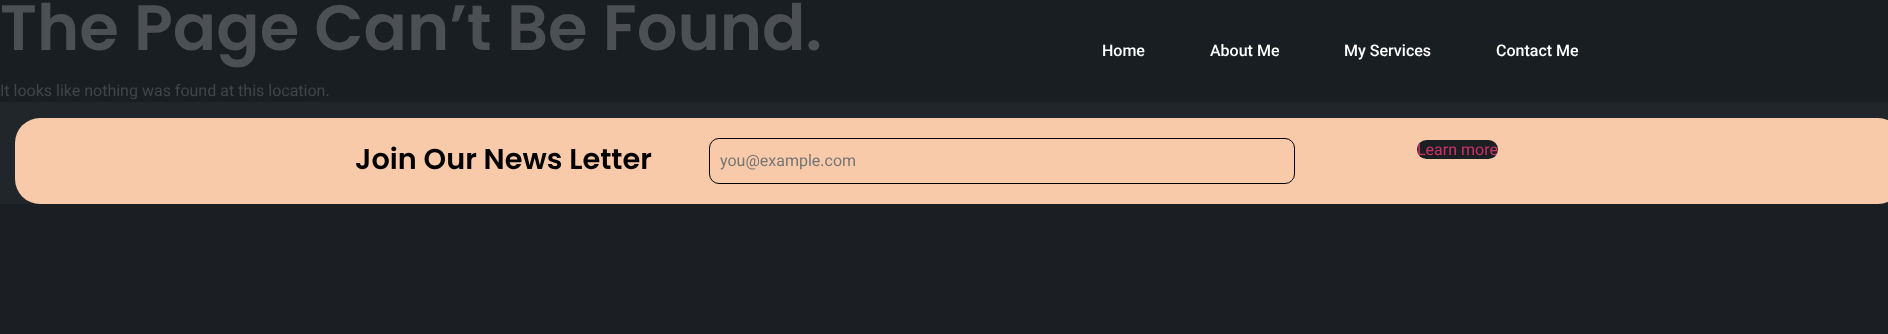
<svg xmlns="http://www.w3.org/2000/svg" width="1888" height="334">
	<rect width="100%" height="100%" fill="#21262B" />
	<rect x="0" y="0" width="1888" height="102" fill="#191E22" />
	<text x="0" y="50" font-family="Poppins" font-size="64" font-weight="600" fill="#4C4F53">The Page Can’t Be Found.</text>
	<text x="0" y="96" font-family="Roboto" font-size="16" fill="#424548">It looks like nothing was found at this location.</text>
	<g font-family="Roboto" font-size="16" font-weight="500" fill="#FFFFFF">
		<text x="1102" y="56">Home</text>
		<text x="1210" y="56">About Me</text>
		<text x="1344" y="56">My Services</text>
		<text x="1496" y="56">Contact Me</text>
	</g>
	<rect x="15" y="118" width="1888" height="86" rx="25" fill="#F8CAAA" />
	<text x="355" y="169" font-family="Poppins" font-size="28.75" font-weight="600" fill="#000000">Join Our News Letter</text>
	<rect x="709.5" y="138.5" width="585" height="45" rx="9.5" fill="none" stroke="#000000" />
	<text x="720" y="166" font-family="Roboto" font-size="16" fill="#757575">you@example.com</text>
	<rect x="1417" y="140" width="81" height="19" rx="9.5" fill="#1B1F23" />
	<text x="1417" y="155" font-family="Roboto" font-size="16" fill="#CC3366">Learn more</text>
	<rect x="0" y="204" width="1888" height="130" fill="#1B1F23" />
</svg>
